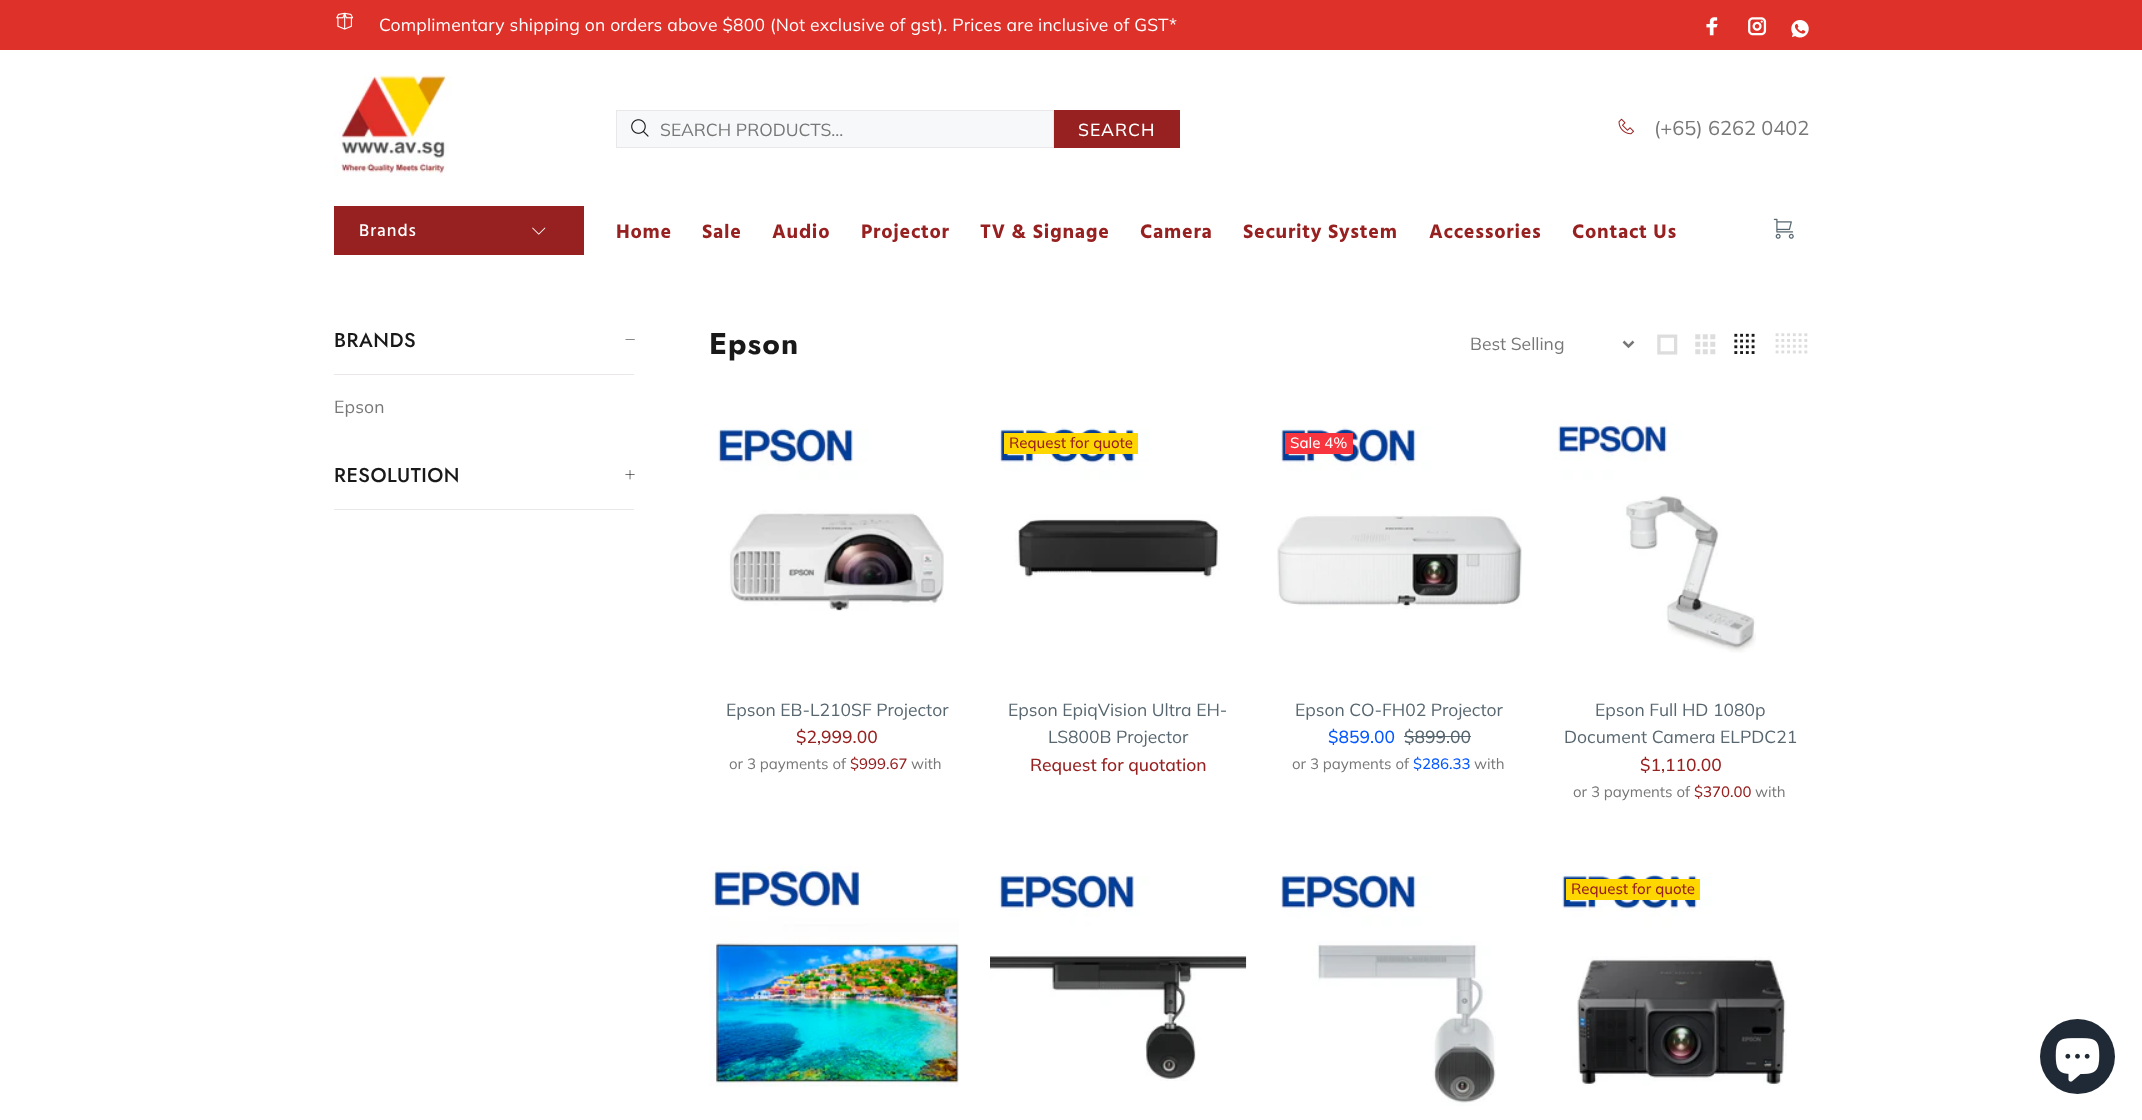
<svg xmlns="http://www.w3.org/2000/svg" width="2142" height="1120">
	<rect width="100%" height="100%" fill="#FFFFFF" />
	<rect x="0" y="0" width="2142" height="50" fill="#DE3129" />
	<image x="336" y="12" width="18" height="18" href="assets/img1.png" />
	<text x="379" y="31" font-family="Mulish" font-size="17.5" letter-spacing="0.18" fill="#FFFFFF">Complimentary shipping on orders above $800 (Not exclusive of gst). Prices are inclusive of GST*</text>
	<image x="1706" y="17" width="12" height="19" href="assets/img2.png" />
	<image x="1748" y="17" width="19" height="19" href="assets/img3.png" />
	<image x="1791" y="20" width="18" height="18" href="assets/img4.png" />
	<image x="334" y="75" width="118" height="101" href="assets/img5.png" />
	<rect x="616.5" y="110.5" width="437" height="37" fill="#F7F8FA" stroke="#E9E7E7" />
	<image x="631" y="119" width="18" height="18" href="assets/img6.png" />
	<text x="660" y="136" font-family="Mulish" font-size="17.5" fill="#777777">SEARCH PRODUCTS...</text>
	<rect x="1054" y="110" width="126" height="38" fill="#972121" />
	<text x="1078" y="136" font-family="Mulish" font-size="17.5" font-weight="500" letter-spacing="1" fill="#FFFFFF">SEARCH</text>
	<image x="1618" y="118" width="16" height="17" href="assets/img7.png" />
	<text x="1654" y="135" font-family="Mulish" font-size="20" fill="#777777">(+65) 6262 0402</text>
	<rect x="334" y="206" width="250" height="49" fill="#972121" />
	<text x="359" y="236" font-family="Hind" font-size="17.5" font-weight="500" letter-spacing="1" fill="#FFFFFF">Brands</text>
	<image x="532" y="227" width="14" height="8" href="assets/img8.png" />
	<g font-family="Hind" font-size="20" font-weight="700" letter-spacing="0.75" fill="#972121">
		<text x="616" y="238">Home</text>
		<text x="702" y="238">Sale</text>
		<text x="772" y="238">Audio</text>
		<text x="861" y="238">Projector</text>
		<text x="980" y="238">TV &amp; Signage</text>
		<text x="1140" y="238">Camera</text>
		<text x="1243" y="238">Security System</text>
		<text x="1429" y="238">Accessories</text>
		<text x="1572" y="238">Contact Us</text>
	</g>
	<image x="1773" y="218" width="21" height="21" href="assets/img9.png" />
	<rect x="334" y="374" width="300" height="1" fill="#E9E7E7" />
	<text x="334" y="347" font-family="Jost" font-size="20" font-weight="500" letter-spacing="0.5" fill="#191919">BRANDS</text>
	<path d="M634.5 339.5L635 340H625.5V339.5Z" fill="#191919" />
	<text x="334" y="413" font-family="Mulish" font-size="17.5" letter-spacing="0.18" fill="#777777">Epson</text>
	<rect x="334" y="509" width="300" height="1" fill="#E9E7E7" />
	<text x="334" y="482" font-family="Jost" font-size="20" font-weight="500" letter-spacing="0.5" fill="#191919">RESOLUTION</text>
	<image x="625" y="470" width="10" height="10" href="assets/img10.png" />
	<text x="709" y="354" font-family="Jost" font-size="30" font-weight="700" letter-spacing="1" fill="#191919">Epson</text>
	<path d="M1623.5 341.5L1628.5 346.5L1633.5 341.5" fill="none" stroke="#777777" stroke-width="2.5" />
	<text x="1470" y="350" font-family="Mulish" font-size="17.5" fill="#777777">Best Selling</text>
	<image x="1657" y="334" width="21" height="21" href="assets/img11.png" />
	<image x="1695" y="334" width="21" height="21" href="assets/img12.png" />
	<image x="1734" y="333" width="21" height="21" href="assets/img13.png" />
	<image x="1775" y="333" width="33" height="21" href="assets/img14.png" />
	<image x="718" y="427" width="226" height="184" href="assets/img15.png" />
	<text x="726" y="716" font-family="Mulish" font-size="17.5" fill="#57666F">Epson EB-L210SF Projector</text>
	<text x="796" y="743" font-family="Mulish" font-size="17.5" font-weight="500" fill="#972121">$2,999.00</text>
	<text x="729" y="769" font-family="Mulish" font-size="15" fill="#777777">or 3 payments of</text>
	<text x="850" y="769" font-family="Mulish" font-size="15" font-weight="500" fill="#972121">$999.67</text>
	<text x="911" y="769" font-family="Mulish" font-size="15" fill="#777777">with</text>
	<image x="999" y="427" width="221" height="152" href="assets/img16.png" />
	<rect x="1004" y="433" width="134" height="21" fill="#FFD700" />
	<text x="1009" y="448" font-family="Mulish" font-size="15" font-weight="500" fill="#972121">Request for quote</text>
	<g font-family="Mulish" font-size="17.5" fill="#57666F">
		<text x="1008" y="716">Epson EpiqVision Ultra EH-</text>
		<text x="1048" y="743">LS800B Projector</text>
	</g>
	<text x="1030" y="771" font-family="Mulish" font-size="17.5" font-weight="500" fill="#972121">Request for quotation</text>
	<image x="1277" y="426" width="245" height="183" href="assets/img17.png" />
	<rect x="1285" y="433" width="68" height="21" fill="#F8353E" />
	<text x="1290" y="448" font-family="Mulish" font-size="15" font-weight="500" fill="#FFFFFF">Sale 4%</text>
	<text x="1295" y="716" font-family="Mulish" font-size="17.5" fill="#57666F">Epson CO-FH02 Projector</text>
	<text x="1328" y="743" font-family="Mulish" font-size="17.5" font-weight="500" fill="#0658FF">$859.00</text>
	<text x="1404" y="743" font-family="Mulish" font-size="17.5" font-weight="500" fill="#57666F">$899.00</text>
	<rect x="1404" y="736" width="67" height="1" fill="#57666F" />
	<text x="1292" y="769" font-family="Mulish" font-size="15" fill="#777777">or 3 payments of</text>
	<text x="1413" y="769" font-family="Mulish" font-size="15" font-weight="500" fill="#0658FF">$286.33</text>
	<text x="1474" y="769" font-family="Mulish" font-size="15" fill="#777777">with</text>
	<image x="1553" y="420" width="203" height="233" href="assets/img18.png" />
	<g font-family="Mulish" font-size="17.5" fill="#57666F">
		<text x="1595" y="716">Epson Full HD 1080p</text>
		<text x="1564" y="743">Document Camera ELPDC21</text>
	</g>
	<text x="1640" y="771" font-family="Mulish" font-size="17.5" font-weight="500" fill="#972121">$1,110.00</text>
	<text x="1573" y="797" font-family="Mulish" font-size="15" fill="#777777">or 3 payments of</text>
	<text x="1694" y="797" font-family="Mulish" font-size="15" font-weight="500" fill="#972121">$370.00</text>
	<text x="1755" y="797" font-family="Mulish" font-size="15" fill="#777777">with</text>
	<image x="709" y="866" width="250" height="221" href="assets/img19.png" />
	<image x="990" y="873" width="257" height="208" href="assets/img20.png" />
	<image x="1280" y="873" width="216" height="233" href="assets/img21.png" />
	<image x="1562" y="873" width="225" height="213" href="assets/img22.png" />
	<rect x="1566" y="879" width="134" height="21" fill="#FFD700" />
	<text x="1571" y="894" font-family="Mulish" font-size="15" font-weight="500" fill="#972121">Request for quote</text>
	<circle cx="2077.5" cy="1056.5" r="37.5" fill="#202A36" />
	<image x="2055" y="1038" width="45" height="44" href="assets/img23.png" />
</svg>
